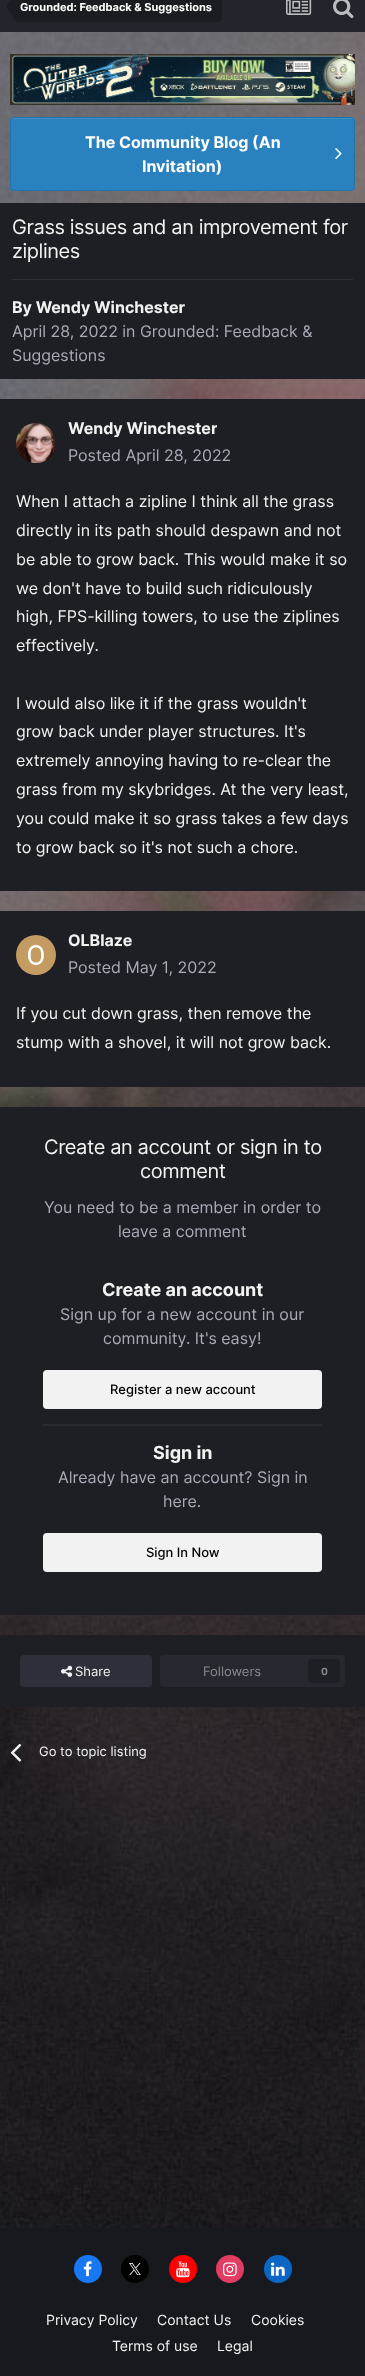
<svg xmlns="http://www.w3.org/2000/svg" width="365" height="2376">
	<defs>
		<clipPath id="clip1"><rect x="68" y="419" width="149" height="18" /></clipPath>
	</defs>
	<rect width="100%" height="100%" fill="#17191F" />
	<rect x="0" y="0" width="365" height="32" fill="#23252C" />
	<path d="M20-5H217C220-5 222-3 222 0V17C222 20 220 22 217 22H20Z" fill="#1A1C21" />
	<path d="M20 7V22C15.5 22 13.5 17.5 11 14C9.5 12 7 10 7 7ZM20 7H7C7 4 9.5 2 11 0C13.5-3.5 15.5-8 20-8Z" fill="#1A1C21" />
	<text x="20" y="11" font-family="Inter" font-size="11" font-weight="700" fill="#FFFFFF">Grounded: Feedback &amp; Suggestions</text>
	<image x="286" y="0" width="26" height="15" href="assets/img1.png" />
	<image x="333" y="0" width="21" height="19" href="assets/img2.png" />
	<image x="0" y="32" width="365" height="2196" href="assets/img3.png" />
	<image x="10" y="54" width="345" height="51" href="assets/img4.png" />
	<rect x="10" y="117" width="345" height="74" rx="4" fill="#2981BF" />
	<path d="M14 119H351C353 119 354 120 354 122C354 120 353 118 351 118H14C12 118 11 120 11 122C11 120 12 119 14 119Z" fill="#3E8EC5" />
	<rect x="10.5" y="117.5" width="344" height="73" rx="3.5" fill="none" stroke="#000000" stroke-opacity="0.1" />
	<text x="85" y="148" font-family="Inter" font-size="16" font-weight="700" fill="#FFFFFF">The Community Blog (An</text>
	<image x="335" y="148" width="7" height="12" href="assets/img5.png" />
	<text x="142" y="172" font-family="Inter" font-size="16" font-weight="700" fill="#FFFFFF">Invitation)</text>
	<rect x="0" y="203" width="365" height="176" fill="#1D1F25" />
	<g font-family="Inter" font-size="20" letter-spacing="-0.4" fill="#F2F2F2">
		<text x="12" y="234">Grass issues and an improvement for</text>
		<text x="12" y="258">ziplines</text>
	</g>
	<rect x="12" y="279" width="341" height="1" fill="#2E3035" />
	<text x="12" y="313" font-family="Inter" font-size="16" font-weight="700" fill="#F2F2F2">By Wendy Winchester</text>
	<g font-family="Inter" font-size="16" fill="#AAAAB6">
		<text x="12" y="337">April 28, 2022 in Grounded: Feedback &amp;</text>
		<text x="12" y="361">Suggestions</text>
	</g>
	<rect x="0" y="399" width="365" height="492" fill="#1D1F25" />
	<image x="16" y="423" width="40" height="40" href="assets/img6.png" />
	<g clip-path="url(#clip1)">
		<text x="68" y="434" font-family="Inter" font-size="16" font-weight="700" fill="#F2F2F2">Wendy Winchester</text>
	</g>
	<text x="68" y="461" font-family="Inter" font-size="16" fill="#AAAAB6">Posted April 28, 2022</text>
	<g font-family="Inter" font-size="16" fill="#F2F2F2">
		<text x="16" y="507">When I attach a zipline I think all the grass</text>
		<text x="16" y="536">directly in its path should despawn and not</text>
		<text x="16" y="565">be able to grow back. This would make it so</text>
		<text x="16" y="594">we don't have to build such ridiculously</text>
		<text x="16" y="622">high, FPS-killing towers, to use the ziplines</text>
		<text x="16" y="651">effectively.</text>
		<text x="16" y="709">I would also like it if the grass wouldn't</text>
		<text x="16" y="737">grow back under player structures. It's</text>
		<text x="16" y="766">extremely annoying having to re-clear the</text>
		<text x="16" y="795">grass from my skybridges. At the very least,</text>
		<text x="16" y="824">you could make it so grass takes a few days</text>
		<text x="16" y="853">to grow back so it's not such a chore.</text>
	</g>
	<rect x="0" y="911" width="365" height="176" fill="#1D1F25" />
	<image x="16" y="935" width="40" height="40" href="assets/img7.png" />
	<text x="68" y="946" font-family="Inter" font-size="16" font-weight="700" fill="#F2F2F2">OLBlaze</text>
	<text x="68" y="973" font-family="Inter" font-size="16" fill="#AAAAB6">Posted May 1, 2022</text>
	<g font-family="Inter" font-size="16" fill="#F2F2F2">
		<text x="16" y="1019">If you cut down grass, then remove the</text>
		<text x="16" y="1048">stump with a shovel, it will not grow back.</text>
	</g>
	<rect x="0" y="1107" width="365" height="508" fill="#1D1F25" />
	<g font-family="Inter" font-size="20" letter-spacing="-0.4" fill="#F2F2F2">
		<text x="44" y="1154">Create an account or sign in to</text>
		<text x="140" y="1178">comment</text>
	</g>
	<g font-family="Inter" font-size="16" fill="#AAAAB6">
		<text x="44" y="1213">You need to be a member in order to</text>
		<text x="118" y="1237">leave a comment</text>
	</g>
	<rect x="43" y="1424" width="279" height="2" fill="#282A2F" />
	<text x="102" y="1296" font-family="Inter" font-size="18" font-weight="700" fill="#F2F2F2">Create an account</text>
	<g font-family="Inter" font-size="16" fill="#AAAAB6">
		<text x="60" y="1320">Sign up for a new account in our</text>
		<text x="103" y="1344">community. It's easy!</text>
	</g>
	<rect x="43" y="1370" width="279" height="39" rx="4" fill="#F2F2F2" />
	<text x="110" y="1394" font-family="Inter" font-size="13" font-weight="500" fill="#000000">Register a new account</text>
	<text x="153" y="1459" font-family="Inter" font-size="18" font-weight="700" fill="#F2F2F2">Sign in</text>
	<g font-family="Inter" font-size="16" fill="#AAAAB6">
		<text x="58" y="1483">Already have an account? Sign in</text>
		<text x="163" y="1507">here.</text>
	</g>
	<rect x="43" y="1533" width="279" height="39" rx="4" fill="#F2F2F2" />
	<text x="146" y="1557" font-family="Inter" font-size="13" font-weight="500" fill="#000000">Sign In Now</text>
	<rect x="0" y="1635" width="365" height="72" fill="#1D1F25" />
	<rect x="20" y="1655" width="132" height="32" rx="4" fill="#2E3039" />
	<image x="61" y="1665" width="12" height="12" href="assets/img8.png" />
	<text x="75" y="1676" font-family="Inter" font-size="13" fill="#F2F2F2">Share</text>
	<rect x="160" y="1655" width="185" height="32" rx="4" fill="#26282F" />
	<text x="203" y="1676" font-family="Inter" font-size="13" fill="#88898C">Followers</text>
	<rect x="308" y="1659" width="32" height="24" rx="4" fill="#1D1F25" />
	<text x="321" y="1675" font-family="Inter" font-size="10" font-weight="700" fill="#88898C">0</text>
	<image x="10" y="1743" width="12" height="19" href="assets/img9.png" />
	<text x="39" y="1756" font-family="Inter" font-size="13" fill="#F2F2F2">Go to topic listing</text>
	<circle cx="88" cy="2269" r="14" fill="#1778F2" />
	<image x="83" y="2261" width="9" height="16" href="assets/img10.png" />
	<circle cx="135" cy="2269" r="14" fill="#000000" />
	<image x="129" y="2263" width="12" height="12" href="assets/img11.png" />
	<circle cx="183" cy="2269" r="14" fill="#FF0000" />
	<image x="176" y="2261" width="14" height="17" href="assets/img12.png" />
	<circle cx="230" cy="2269" r="14" fill="#E13D62" />
	<image x="223" y="2262" width="14" height="15" href="assets/img13.png" />
	<circle cx="278" cy="2269" r="14" fill="#0A66C2" />
	<image x="271" y="2262" width="14" height="14" href="assets/img14.png" />
	<g font-family="Inter" font-size="14" fill="#F2F2F2">
		<text x="46" y="2325">Privacy Policy</text>
		<text x="157" y="2325">Contact Us</text>
		<text x="251" y="2325">Cookies</text>
		<text x="112" y="2351">Terms of use</text>
		<text x="217" y="2351">Legal</text>
	</g>
</svg>
